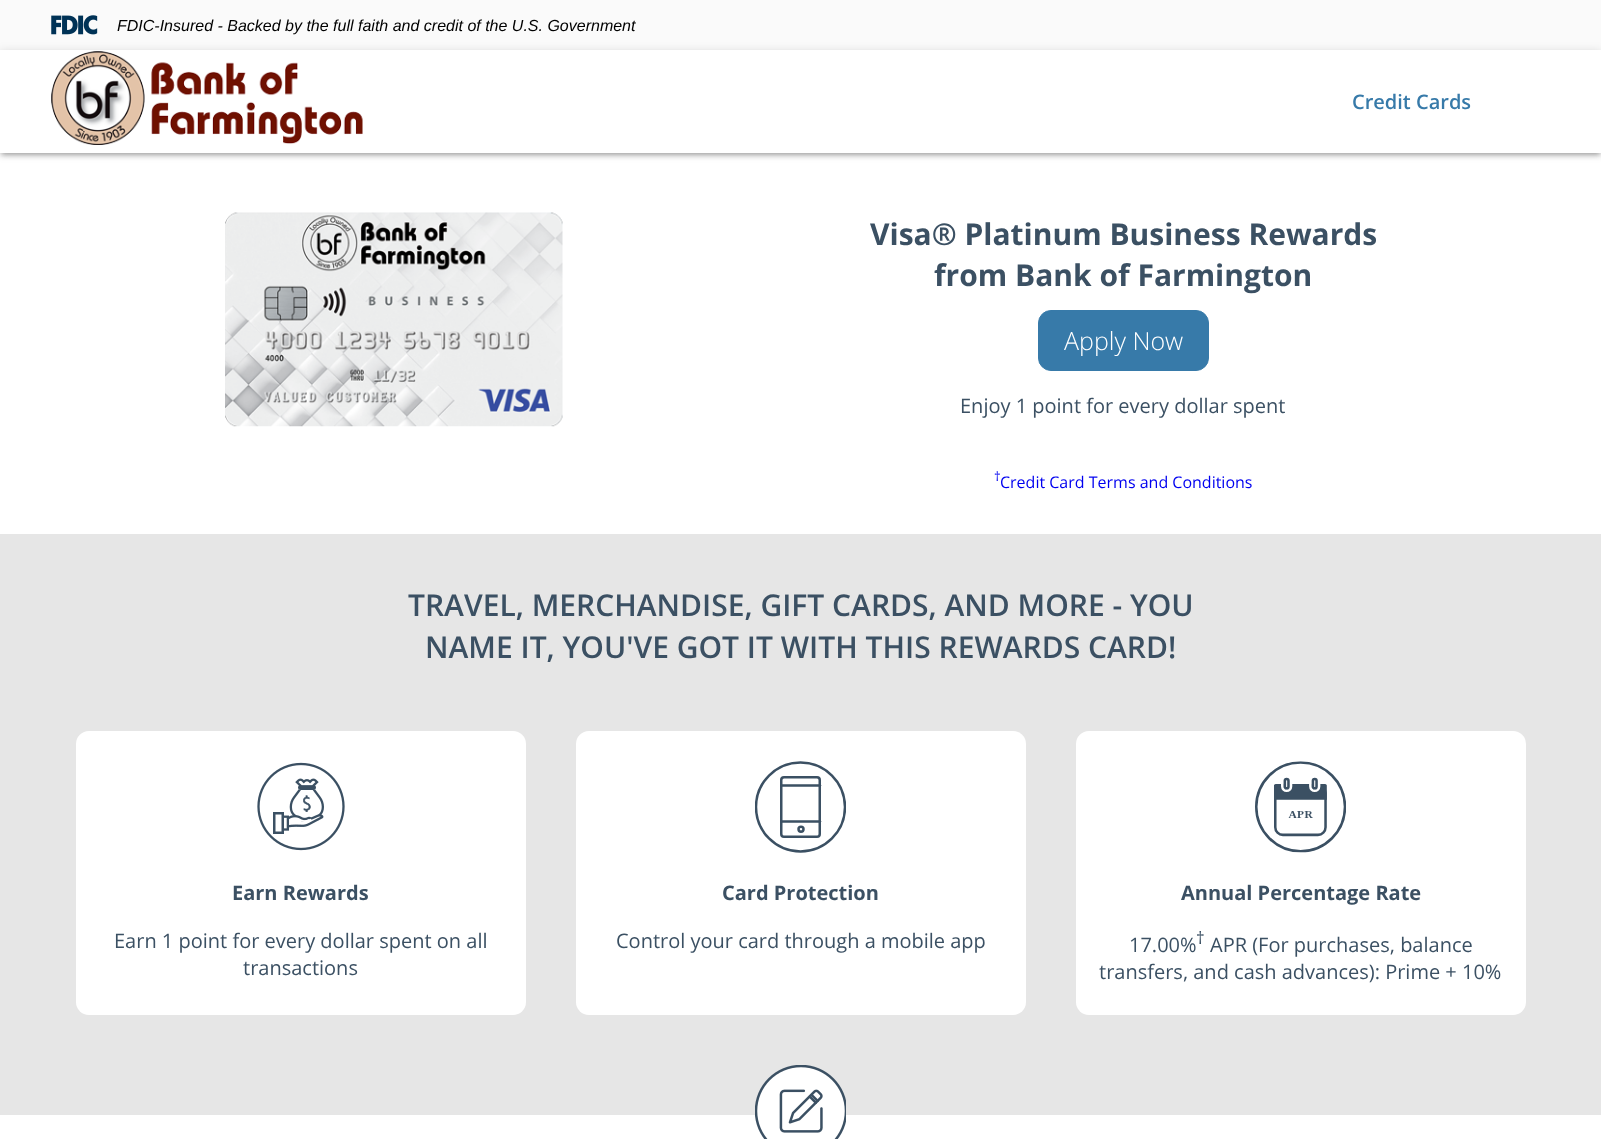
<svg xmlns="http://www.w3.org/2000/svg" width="1601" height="1139">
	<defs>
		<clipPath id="clip1"><rect x="755" y="761" width="91" height="92" /></clipPath>
	</defs>
	<rect width="100%" height="100%" fill="#FFFFFF" />
	<rect x="0" y="0" width="1601" height="50" fill="#FAFAFA" />
	<image x="51" y="15" width="47" height="20" href="assets/img1.png" />
	<text x="117" y="31" font-family="Liberation Sans" font-size="16" font-style="italic" fill="#000000">FDIC-Insured - Backed by the full faith and credit of the U.S. Government</text>
	<rect x="0" y="51" width="1601" height="103" fill="#000000" fill-opacity="0.12" filter="blur(5px)" />
	<rect x="0" y="54" width="1601" height="102" fill="#000000" fill-opacity="0.14" filter="blur(2.5px)" />
	<rect x="3" y="56" width="1596" height="98" fill="#000000" fill-opacity="0.2" filter="blur(2px)" />
	<rect x="0" y="50" width="1601" height="103" fill="#FFFFFF" />
	<image x="51" y="51" width="312" height="94" href="assets/img2.png" />
	<text x="1352" y="109" font-family="Open Sans" font-size="20" font-weight="600" fill="#377AA9">Credit Cards</text>
	<image x="225" y="212" width="338" height="215" href="assets/img3.png" />
	<g font-family="Open Sans" font-size="30" font-weight="700" fill="#3B5063">
		<text x="870" y="245">Visa® Platinum Business Rewards</text>
		<text x="934" y="286">from Bank of Farmington</text>
	</g>
	<rect x="1038.5" y="310.5" width="170" height="60" rx="12.5" fill="#377AA9" stroke="#377AA9" />
	<text x="1064" y="350" font-family="Open Sans" font-size="25" font-weight="300" fill="#FFFFFF">Apply Now</text>
	<text x="960" y="413" font-family="Open Sans" font-size="20" fill="#3B5063">Enjoy 1 point for every dollar spent</text>
	<text x="994" y="481" font-family="Open Sans" font-size="13" fill="#0000F0">†</text>
	<text x="1000" y="488" font-family="Open Sans" font-size="16" fill="#0000F0">Credit Card Terms and Conditions</text>
	<rect x="0" y="534" width="1601" height="581" fill="#E6E6E6" />
	<g font-family="Open Sans" font-size="30" font-weight="600" fill="#3B5063">
		<text x="408" y="616">TRAVEL, MERCHANDISE, GIFT CARDS, AND MORE - YOU</text>
		<text x="425" y="658">NAME IT, YOU'VE GOT IT WITH THIS REWARDS CARD!</text>
	</g>
	<rect x="76" y="731" width="450" height="284" rx="13" fill="#FFFFFF" />
	<image x="257" y="762" width="88" height="89" href="assets/img4.png" />
	<text x="232" y="900" font-family="Open Sans" font-size="20" font-weight="700" fill="#3B5063">Earn Rewards</text>
	<g font-family="Open Sans" font-size="20" fill="#3B5063">
		<text x="114" y="948">Earn 1 point for every dollar spent on all</text>
		<text x="243" y="975">transactions</text>
	</g>
	<rect x="576" y="731" width="450" height="284" rx="13" fill="#FFFFFF" />
	<g clip-path="url(#clip1)">
		<circle cx="800.5" cy="807" r="44.5" fill="none" stroke="#3B5063" stroke-width="2.5" />
	</g>
	<rect x="781.25" y="777.25" width="38.5" height="59.5" rx="2.75" fill="none" stroke="#3B5063" stroke-width="2.5" />
	<path d="M820 785.5H781.5" fill="none" stroke="#3B5063" stroke-width="2.5" stroke-linecap="round" stroke-linejoin="round" />
	<path d="M820 821.5H782" fill="none" stroke="#3B5063" stroke-width="2.5" stroke-linecap="round" />
	<path d="M798.5 829C798.5 832.5 803.5 832.5 803.5 829C803.5 826 798.5 826 798.5 829Z" fill="none" stroke="#3B5063" stroke-width="2.5" stroke-linecap="round" stroke-linejoin="round" />
	<text x="722" y="900" font-family="Open Sans" font-size="20" font-weight="700" fill="#3B5063">Card Protection</text>
	<text x="616" y="948" font-family="Open Sans" font-size="20" fill="#3B5063">Control your card through a mobile app</text>
	<rect x="1076" y="731" width="450" height="284" rx="13" fill="#FFFFFF" />
	<image x="1255" y="761" width="91" height="92" href="assets/img5.png" />
	<text x="1181" y="900" font-family="Open Sans" font-size="20" font-weight="700" fill="#3B5063">Annual Percentage Rate</text>
	<text x="1129" y="952" font-family="Open Sans" font-size="20" fill="#3B5063">17.00%</text>
	<text x="1196" y="944" font-family="Open Sans" font-size="17" fill="#3B5063">†</text>
	<g font-family="Open Sans" font-size="20" fill="#3B5063">
		<text x="1210" y="952">APR (For purchases, balance</text>
		<text x="1099" y="979">transfers, and cash advances): Prime + 10%</text>
	</g>
	<image x="755" y="1065" width="91" height="74" href="assets/img6.png" />
</svg>
